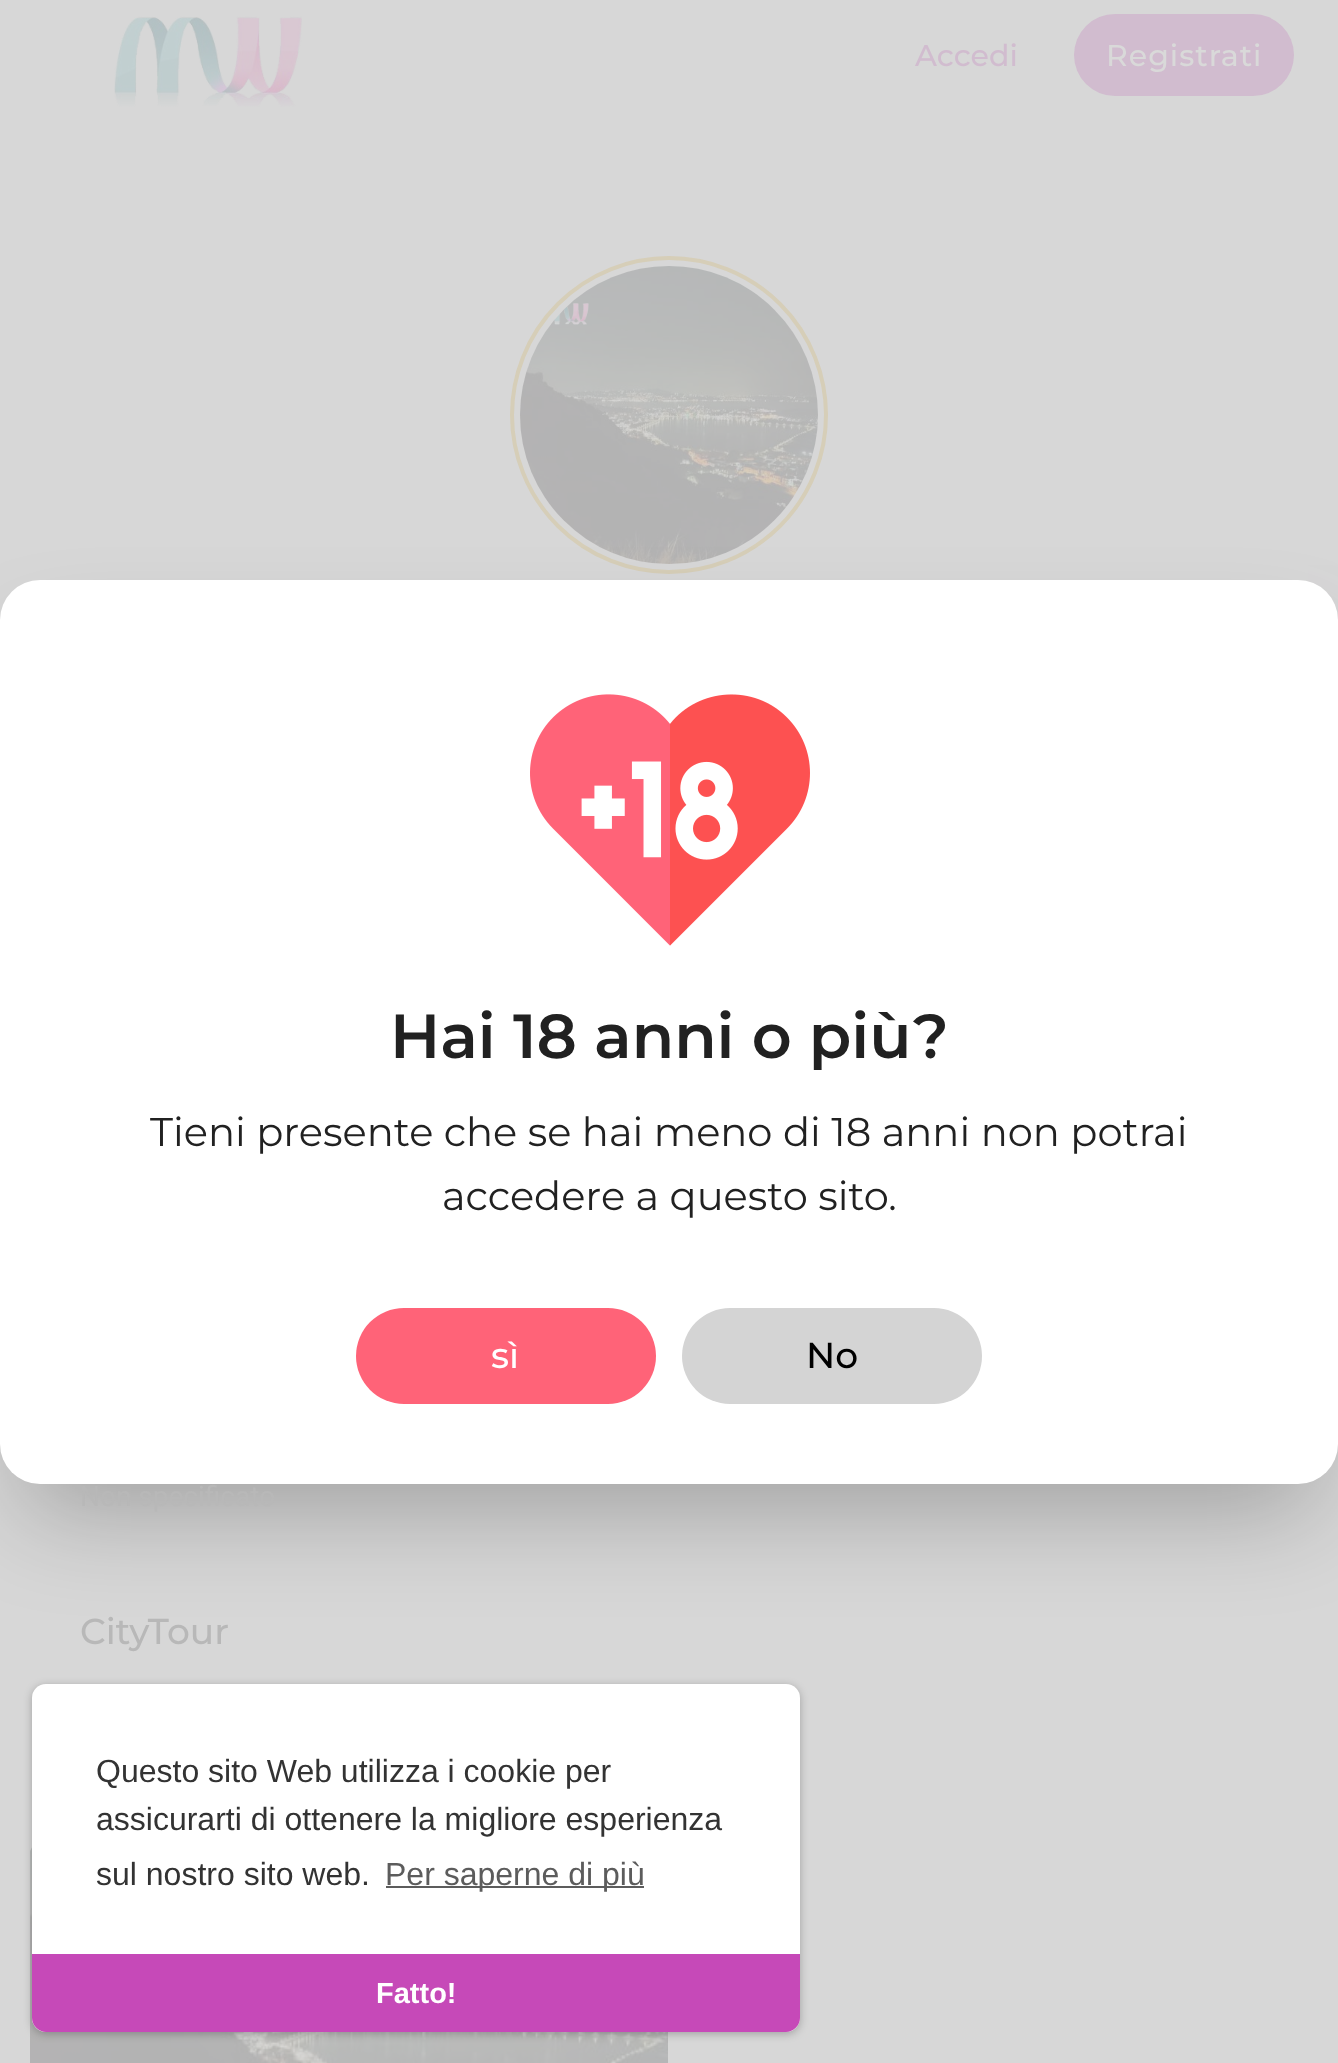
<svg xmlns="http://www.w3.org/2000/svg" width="1338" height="2063">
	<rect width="100%" height="100%" fill="#D7D7D7" />
	<image x="114" y="16" width="188" height="91" href="assets/img1.png" />
	<text x="915" y="66" font-family="Montserrat" font-size="30" font-weight="500" fill="#D1BCCF">Accedi</text>
	<rect x="1074" y="14" width="220" height="82" rx="41" fill="#D1BCCF" />
	<text x="1106" y="66" font-family="Montserrat" font-size="30" font-weight="500" letter-spacing="1" fill="#D9D9D9">Registrati</text>
	<image x="1308" y="565" width="30" height="55" href="assets/img2.png" />
	<circle cx="669" cy="415" r="157" fill="none" stroke="#D6CEB8" stroke-width="4" />
	<image x="520" y="266" width="298" height="298" href="assets/img4.png" />
	<rect x="24" y="654" width="1290" height="856" rx="16" fill="#000000" fill-opacity="0.25" filter="blur(50px)" />
	<rect x="0" y="580" width="1338" height="904" rx="40" fill="#FFFFFF" />
	<image x="530" y="694" width="280" height="252" href="assets/img3.png" />
	<text x="390" y="1058" font-family="Montserrat" font-size="62" font-weight="600" fill="#212121">Hai 18 anni o più?</text>
	<g font-family="Montserrat" font-size="40" fill="#212121">
		<text x="150" y="1146">Tieni presente che se hai meno di 18 anni non potrai</text>
		<text x="442" y="1210">accedere a questo sito.</text>
	</g>
	<rect x="356" y="1308" width="300" height="96" rx="48" fill="#FF6378" />
	<text x="491" y="1368" font-family="Montserrat" font-size="36" font-weight="500" fill="#FFFFFF">sì</text>
	<rect x="682" y="1308" width="300" height="96" rx="48" fill="#D4D4D4" />
	<text x="806" y="1368" font-family="Montserrat" font-size="36" font-weight="500" fill="#000000">No</text>
	<text x="80" y="1506" font-family="Roboto" font-size="28" fill="#B8B8B8">Non specificato</text>
	<text x="80" y="1644" font-family="Montserrat" font-size="36" font-weight="500" fill="#B8B8B8">CityTour</text>
	<image x="30" y="1847" width="638" height="216" href="assets/img5.png" />
	<rect x="32" y="1686" width="768" height="348" rx="14" fill="#000000" fill-opacity="0.25" filter="blur(4px)" />
	<rect x="32" y="1684" width="768" height="348" rx="14" fill="#FFFFFF" />
	<g font-family="Liberation Sans" font-size="32" fill="#333333">
		<text x="96" y="1782">Questo sito Web utilizza i cookie per</text>
		<text x="96" y="1830">assicurarti di ottenere la migliore esperienza</text>
		<text x="96" y="1885">sul nostro sito web.</text>
	</g>
	<rect x="386" y="1886" width="258" height="2" fill="#5C5C5C" />
	<text x="385" y="1885" font-family="Liberation Sans" font-size="32" fill="#5C5C5C">Per saperne di più</text>
	<path d="M32 1954H800V2018C800 2025.5 793.5 2032 786 2032H46C38.5 2032 32 2025.5 32 2018Z" fill="#C649B8" />
	<text x="376" y="2003" font-family="Liberation Sans" font-size="29" font-weight="700" fill="#FFFFFF">Fatto!</text>
</svg>
